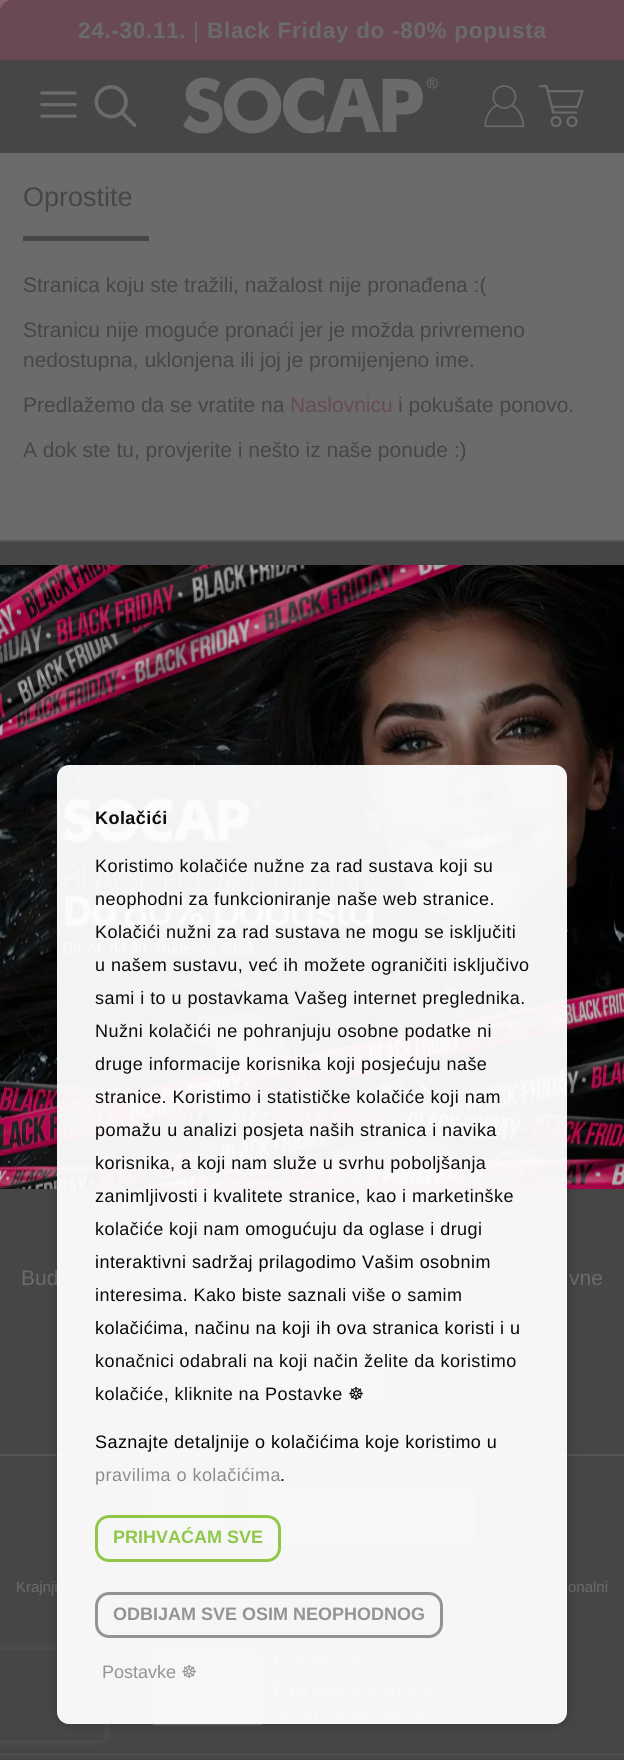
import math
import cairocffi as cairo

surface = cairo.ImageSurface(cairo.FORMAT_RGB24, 624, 1760)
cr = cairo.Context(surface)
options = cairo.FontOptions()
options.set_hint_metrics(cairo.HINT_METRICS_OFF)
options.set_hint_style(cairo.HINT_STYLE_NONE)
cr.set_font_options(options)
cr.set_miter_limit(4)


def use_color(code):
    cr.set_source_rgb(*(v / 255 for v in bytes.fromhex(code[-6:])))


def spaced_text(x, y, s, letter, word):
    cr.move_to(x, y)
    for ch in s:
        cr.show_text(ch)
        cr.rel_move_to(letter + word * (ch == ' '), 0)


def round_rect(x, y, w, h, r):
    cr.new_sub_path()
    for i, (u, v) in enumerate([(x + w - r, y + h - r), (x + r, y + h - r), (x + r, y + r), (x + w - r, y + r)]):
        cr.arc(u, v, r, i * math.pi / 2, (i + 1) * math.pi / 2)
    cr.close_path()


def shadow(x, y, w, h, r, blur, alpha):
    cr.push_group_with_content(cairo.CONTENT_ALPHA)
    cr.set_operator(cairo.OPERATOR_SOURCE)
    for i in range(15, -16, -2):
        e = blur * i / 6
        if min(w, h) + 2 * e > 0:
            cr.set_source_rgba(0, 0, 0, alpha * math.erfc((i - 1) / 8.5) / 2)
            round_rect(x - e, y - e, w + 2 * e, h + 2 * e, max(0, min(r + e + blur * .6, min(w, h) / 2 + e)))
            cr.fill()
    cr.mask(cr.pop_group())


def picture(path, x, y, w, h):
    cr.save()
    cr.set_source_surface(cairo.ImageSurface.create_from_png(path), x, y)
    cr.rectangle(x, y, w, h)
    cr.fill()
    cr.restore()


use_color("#949494")
cr.paint()
use_color("#916673")
cr.rectangle(0, 0, 624, 60)
cr.fill()
cr.select_font_face("Liberation Sans", cairo.FONT_SLANT_NORMAL, cairo.FONT_WEIGHT_BOLD)
cr.set_font_size(22.5)
use_color("#949494")
spaced_text(78, 38, "24.-30.11.", 0.7, 0)
cr.select_font_face("Liberation Sans")
spaced_text(193, 38, "|", 0.7, 0)
cr.select_font_face("Liberation Sans", cairo.FONT_SLANT_NORMAL, cairo.FONT_WEIGHT_BOLD)
spaced_text(207, 38, "Black Friday do -80% popusta", 0.7, 0)
use_color("#616161")
cr.rectangle(0, 60, 624, 93)
cr.fill()
picture("img1.png", 40, 91, 37, 27)
picture("img2.png", 94, 85, 43, 43)
picture("img3.png", 183, 77, 255, 57)
picture("img4.png", 484, 85, 41, 43)
picture("img5.png", 539, 85, 45, 43)
cr.select_font_face("Liberation Sans")
cr.set_font_size(27)
cr.move_to(23, 206)
cr.show_text("Oprostite")
cr.rectangle(23, 236, 126, 5)
cr.fill()
cr.set_font_size(21)
cr.move_to(23, 292)
cr.show_text("Stranica koju ste tražili, nažalost nije pronađena :(")
cr.move_to(23, 337)
cr.show_text("Stranicu nije moguće pronaći jer je možda privremeno")
cr.move_to(23, 367)
cr.show_text("nedostupna, uklonjena ili joj je promijenjeno ime.")
cr.move_to(23, 412)
cr.show_text("Predlažemo da se vratite na")
use_color("#916673")
cr.move_to(290, 412)
cr.show_text("Naslovnicu")
use_color("#616161")
cr.move_to(398, 412)
cr.show_text("i pokušate ponovo.")
cr.move_to(23, 457)
cr.show_text("A dok ste tu, provjerite i nešto iz naše ponude :)")
cr.rectangle(0, 542, 624, 1212)
cr.fill()
picture("img6.png", 0, 565, 624, 624)
use_color("#757575")
cr.rectangle(0, 540, 624, 2)
cr.fill()
cr.rectangle(0, 1454, 624, 2)
cr.fill()
use_color("#949494")
cr.move_to(21, 1285)
cr.show_text("Bud")
cr.move_to(569, 1285)
cr.show_text("vne")
use_color("#916673")
round_rect(237, 1350, 150, 56, 6)
cr.fill()
use_color("#757575")
cr.rectangle(0, 1754, 624, 1)
cr.fill()
picture("img7.png", 147, 1485, 330, 65)
cr.set_font_size(15)
use_color("#949494")
cr.move_to(16, 1592)
cr.show_text("Krajnji")
cr.move_to(568, 1592)
cr.show_text("onalni")
picture("img8.png", 152, 1650, 309, 76)
use_color("#616161")
cr.rectangle(0, 1755, 624, 5)
cr.fill()
cr.save()
cr.set_fill_rule(cairo.FILL_RULE_EVEN_ODD)
cr.new_path()
cr.move_to(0, 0)
cr.line_to(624, 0)
cr.line_to(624, 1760)
cr.line_to(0, 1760)
cr.close_path()
cr.move_to(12, 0)
cr.line_to(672, 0)
cr.curve_to(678.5, 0, 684, 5.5, 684, 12)
cr.line_to(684, 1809)
cr.curve_to(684, 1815.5, 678.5, 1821, 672, 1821)
cr.line_to(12, 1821)
cr.curve_to(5.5, 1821, 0, 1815.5, 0, 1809)
cr.line_to(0, 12)
cr.curve_to(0, 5.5, 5.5, 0, 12, 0)
cr.close_path()
cr.clip()
use_color("#070506")
shadow(-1, -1, 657, 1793, 14, 6, 0.2)
cr.restore()
cr.save()
cr.set_fill_rule(cairo.FILL_RULE_EVEN_ODD)
cr.new_path()
cr.move_to(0, 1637)
cr.line_to(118, 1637)
cr.line_to(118, 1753)
cr.line_to(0, 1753)
cr.close_path()
cr.move_to(-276, 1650)
cr.line_to(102, 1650)
cr.curve_to(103.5, 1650, 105, 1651.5, 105, 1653)
cr.line_to(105, 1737)
cr.curve_to(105, 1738.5, 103.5, 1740, 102, 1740)
cr.line_to(-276, 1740)
cr.curve_to(-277.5, 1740, -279, 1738.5, -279, 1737)
cr.line_to(-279, 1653)
cr.curve_to(-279, 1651.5, -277.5, 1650, -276, 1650)
cr.close_path()
cr.clip()
use_color("#7a7a7a")
shadow(-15, 1650, 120, 90, 3, 4, 1)
cr.restore()
cr.set_source_rgba(0, 0, 0, 0.28)
round_rect(0, 0, 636, 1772, 12)
cr.fill()
cr.save()
cr.rectangle(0, 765, 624, 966)
cr.clip()
cr.set_fill_rule(cairo.FILL_RULE_EVEN_ODD)
cr.new_path()
cr.move_to(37, 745)
cr.line_to(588, 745)
cr.line_to(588, 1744)
cr.line_to(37, 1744)
cr.close_path()
cr.move_to(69, 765)
cr.line_to(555, 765)
cr.curve_to(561.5, 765, 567, 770.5, 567, 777)
cr.line_to(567, 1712)
cr.curve_to(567, 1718.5, 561.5, 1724, 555, 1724)
cr.line_to(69, 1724)
cr.curve_to(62.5, 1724, 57, 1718.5, 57, 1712)
cr.line_to(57, 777)
cr.curve_to(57, 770.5, 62.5, 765, 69, 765)
cr.close_path()
cr.clip()
use_color("#000000")
shadow(56, 764, 513, 961, 14, 6, 0.19)
cr.restore()
cr.set_source_rgba(1, 1, 1, 0.95)
round_rect(57, 765, 510, 959, 12)
cr.fill()
cr.select_font_face("Liberation Sans", cairo.FONT_SLANT_NORMAL, cairo.FONT_WEIGHT_BOLD)
cr.set_font_size(18)
use_color("#0c0c0c")
spaced_text(95, 824, "Kolačići", 0.45, 0)
cr.select_font_face("Liberation Sans")
spaced_text(95, 872, "Koristimo kolačiće nužne za rad sustava koji su", 0.45, 0)
spaced_text(95, 905, "neophodni za funkcioniranje naše web stranice.", 0.45, 0)
spaced_text(95, 938, "Kolačići nužni za rad sustava ne mogu se isključiti", 0.45, 0)
spaced_text(95, 971, "u našem sustavu, već ih možete ograničiti isključivo", 0.45, 0)
spaced_text(95, 1004, "sami i to u postavkama Vašeg internet preglednika.", 0.45, 0)
spaced_text(95, 1037, "Nužni kolačići ne pohranjuju osobne podatke ni", 0.45, 0)
spaced_text(95, 1070, "druge informacije korisnika koji posjećuju naše", 0.45, 0)
spaced_text(95, 1103, "stranice. Koristimo i statističke kolačiće koji nam", 0.45, 0)
spaced_text(95, 1136, "pomažu u analizi posjeta naših stranica i navika", 0.45, 0)
spaced_text(95, 1169, "korisnika, a koji nam služe u svrhu poboljšanja", 0.45, 0)
spaced_text(95, 1202, "zanimljivosti i kvalitete stranice, kao i marketinške", 0.45, 0)
spaced_text(95, 1235, "kolačiće koji nam omogućuju da oglase i drugi", 0.45, 0)
use_color("#050505")
spaced_text(95, 1268, "interaktivni sadržaj prilagodimo Vašim osobnim", 0.45, 0)
use_color("#0c0c0c")
spaced_text(95, 1301, "interesima. Kako biste saznali više o samim", 0.45, 0)
use_color("#050505")
spaced_text(95, 1334, "kolačićima, načinu na koji ih ova stranica koristi i u", 0.45, 0)
use_color("#0c0c0c")
spaced_text(95, 1367, "konačnici odabrali na koji način želite da koristimo", 0.45, 0)
spaced_text(95, 1400, "kolačiće, kliknite na Postavke", 0.45, 0)
cr.select_font_face("DejaVu Sans")
use_color("#050505")
spaced_text(348, 1400, "☸", 0.45, 0)
cr.select_font_face("Liberation Sans")
spaced_text(95, 1448, "Saznajte detaljnije o kolačićima koje koristimo u", 0.45, 0)
use_color("#8c8c8c")
spaced_text(95, 1481, "pravilima o kolačićima", 0.45, 0)
use_color("#050505")
spaced_text(280, 1481, ".", 0.45, 0)
round_rect(96.5, 1516.5, 183, 44, 12.5)
use_color("#90c748")
cr.set_line_width(3)
cr.stroke()
cr.select_font_face("Liberation Sans", cairo.FONT_SLANT_NORMAL, cairo.FONT_WEIGHT_BOLD)
cr.move_to(113, 1543)
cr.show_text("PRIHVAĆAM SVE")
round_rect(96.5, 1593.5, 345, 43, 12.5)
use_color("#939393")
cr.stroke()
use_color("#949494")
cr.move_to(113, 1620)
cr.show_text("ODBIJAM SVE OSIM NEOPHODNOG")
cr.select_font_face("Liberation Sans")
cr.move_to(102, 1678)
cr.show_text("Postavke")
cr.select_font_face("DejaVu Sans")
cr.move_to(181, 1678)
cr.show_text("☸")
surface.write_to_png("result.png")
